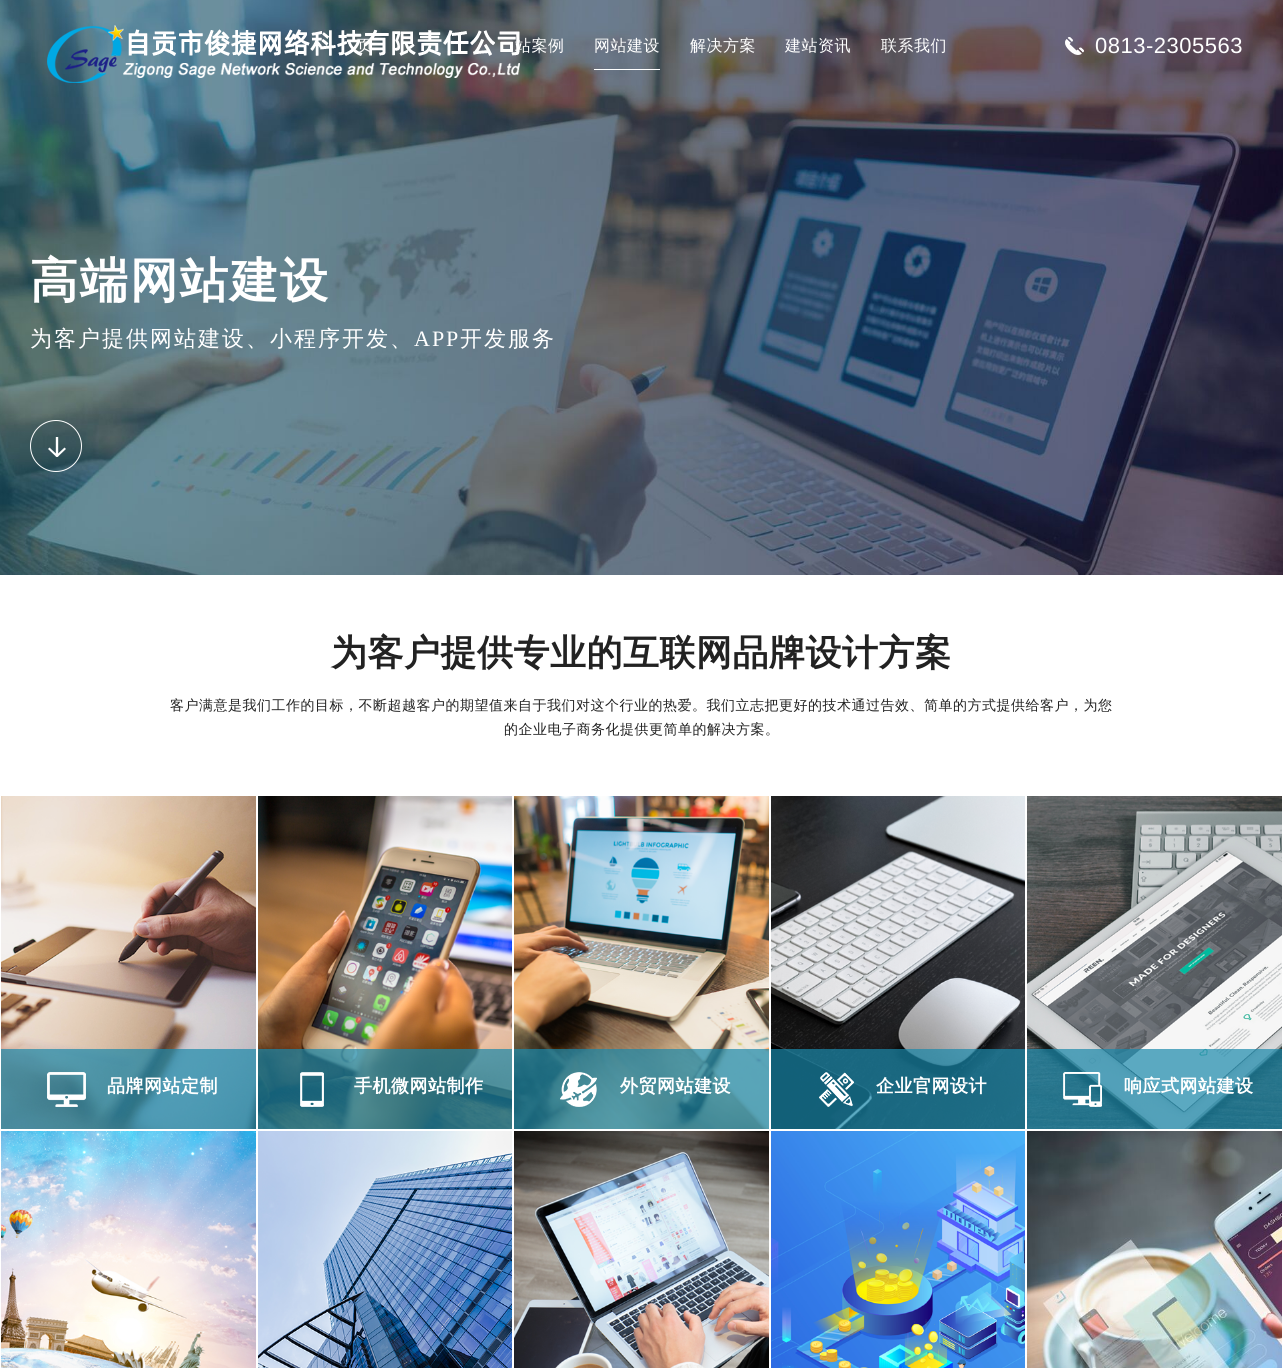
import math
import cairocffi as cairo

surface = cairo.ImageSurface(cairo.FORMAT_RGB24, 1283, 1368)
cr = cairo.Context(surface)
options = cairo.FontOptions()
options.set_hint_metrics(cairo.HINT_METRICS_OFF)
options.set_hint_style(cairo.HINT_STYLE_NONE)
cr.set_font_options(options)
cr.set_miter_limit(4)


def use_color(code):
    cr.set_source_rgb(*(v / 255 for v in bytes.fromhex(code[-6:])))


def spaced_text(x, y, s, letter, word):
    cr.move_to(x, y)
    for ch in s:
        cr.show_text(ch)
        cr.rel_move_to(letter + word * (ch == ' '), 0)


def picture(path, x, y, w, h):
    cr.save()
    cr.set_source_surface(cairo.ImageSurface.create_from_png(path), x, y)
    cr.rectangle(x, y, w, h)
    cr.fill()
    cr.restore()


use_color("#ffffff")
cr.paint()
picture("img3.png", 0, 0, 1283, 575)
cr.select_font_face("WenQuanYi Zen Hei Medium")
cr.set_font_size(16)
use_color("#ffffff")
spaced_text(357, 51, "页", 0.5, 0)
spaced_text(515, 51, "站案例", 0.5, 0)
picture("img1.png", 47, 25, 473, 58)
spaced_text(594, 51, "网站建设", 0.5, 0)
cr.rectangle(594, 69, 66, 1)
cr.fill()
spaced_text(690, 51, "解决方案", 0.5, 0)
spaced_text(785, 51, "建站资讯", 0.5, 0)
spaced_text(881, 51, "联系我们", 0.5, 0)
picture("img2.png", 1065, 37, 19, 18)
cr.select_font_face("Liberation Sans")
cr.set_font_size(22)
spaced_text(1095, 53, "0813-2305563", 0.5, 0)
cr.select_font_face("WenQuanYi Zen Hei", cairo.FONT_SLANT_NORMAL, cairo.FONT_WEIGHT_BOLD)
cr.set_font_size(48)
spaced_text(30, 297, "高端网站建设", 2, 0)
cr.select_font_face("WenQuanYi Zen Hei Medium")
cr.set_font_size(22)
spaced_text(30, 346, "为客户提供网站建设、小程序开发、", 2, 0)
cr.select_font_face("Liberation Serif")
spaced_text(414, 346, "APP", 2, 0)
cr.select_font_face("WenQuanYi Zen Hei Medium")
spaced_text(460, 346, "开发服务", 2, 0)
cr.new_path()
cr.arc(56, 446, 25.5, 0, 2 * math.pi)
cr.set_line_width(1)
cr.stroke()
picture("img4.png", 48, 437, 18, 20)
cr.select_font_face("WenQuanYi Zen Hei", cairo.FONT_SLANT_NORMAL, cairo.FONT_WEIGHT_BOLD)
cr.set_font_size(36)
use_color("#222222")
spaced_text(331, 665, "为客户提供专业的互联网品牌设计方案", 0.5, 0)
cr.select_font_face("WenQuanYi Zen Hei Medium")
cr.set_font_size(14)
spaced_text(170, 710, "客户满意是我们工作的目标，不断超越客户的期望值来自于我们对这个行业的热爱。我们立志把更好的技术通过告效、简单的方式提供给客户，为您", 0.5, 0)
spaced_text(504, 734, "的企业电子商务化提供更简单的解决方案。", 0.5, 0)
picture("img5.png", 1, 796, 255, 333)
cr.set_source_rgba(0.102, 0.537, 0.675, 0.7)
cr.rectangle(1, 1049, 255, 80)
cr.fill()
picture("img6.png", 47, 1072, 39, 35)
cr.select_font_face("WenQuanYi Zen Hei", cairo.FONT_SLANT_NORMAL, cairo.FONT_WEIGHT_BOLD)
cr.set_font_size(18)
use_color("#ffffff")
spaced_text(107, 1092, "品牌网站定制", 0.5, 0)
picture("img7.png", 258, 796, 254, 333)
cr.set_source_rgba(0.102, 0.537, 0.675, 0.7)
cr.rectangle(258, 1049, 254, 80)
cr.fill()
picture("img8.png", 300, 1072, 24, 35)
use_color("#ffffff")
spaced_text(354, 1092, "手机微网站制作", 0.5, 0)
picture("img9.png", 514, 796, 255, 333)
cr.set_source_rgba(0.102, 0.537, 0.675, 0.7)
cr.rectangle(514, 1049, 255, 80)
cr.fill()
picture("img10.png", 560, 1072, 37, 35)
use_color("#ffffff")
spaced_text(620, 1092, "外贸网站建设", 0.5, 0)
picture("img11.png", 771, 796, 254, 333)
cr.set_source_rgba(0.102, 0.537, 0.675, 0.7)
cr.rectangle(771, 1049, 254, 80)
cr.fill()
picture("img12.png", 819, 1072, 35, 35)
use_color("#ffffff")
spaced_text(876, 1092, "企业官网设计", 0.5, 0)
picture("img13.png", 1027, 796, 255, 333)
cr.set_source_rgba(0.102, 0.537, 0.675, 0.7)
cr.rectangle(1027, 1049, 255, 80)
cr.fill()
picture("img14.png", 1063, 1072, 39, 35)
use_color("#ffffff")
spaced_text(1124, 1092, "响应式网站建设", 0.5, 0)
picture("img15.png", 1, 1131, 255, 237)
picture("img16.png", 258, 1131, 254, 237)
picture("img17.png", 514, 1131, 255, 237)
picture("img18.png", 771, 1131, 254, 237)
picture("img19.png", 1027, 1131, 255, 237)
surface.write_to_png("result.png")
